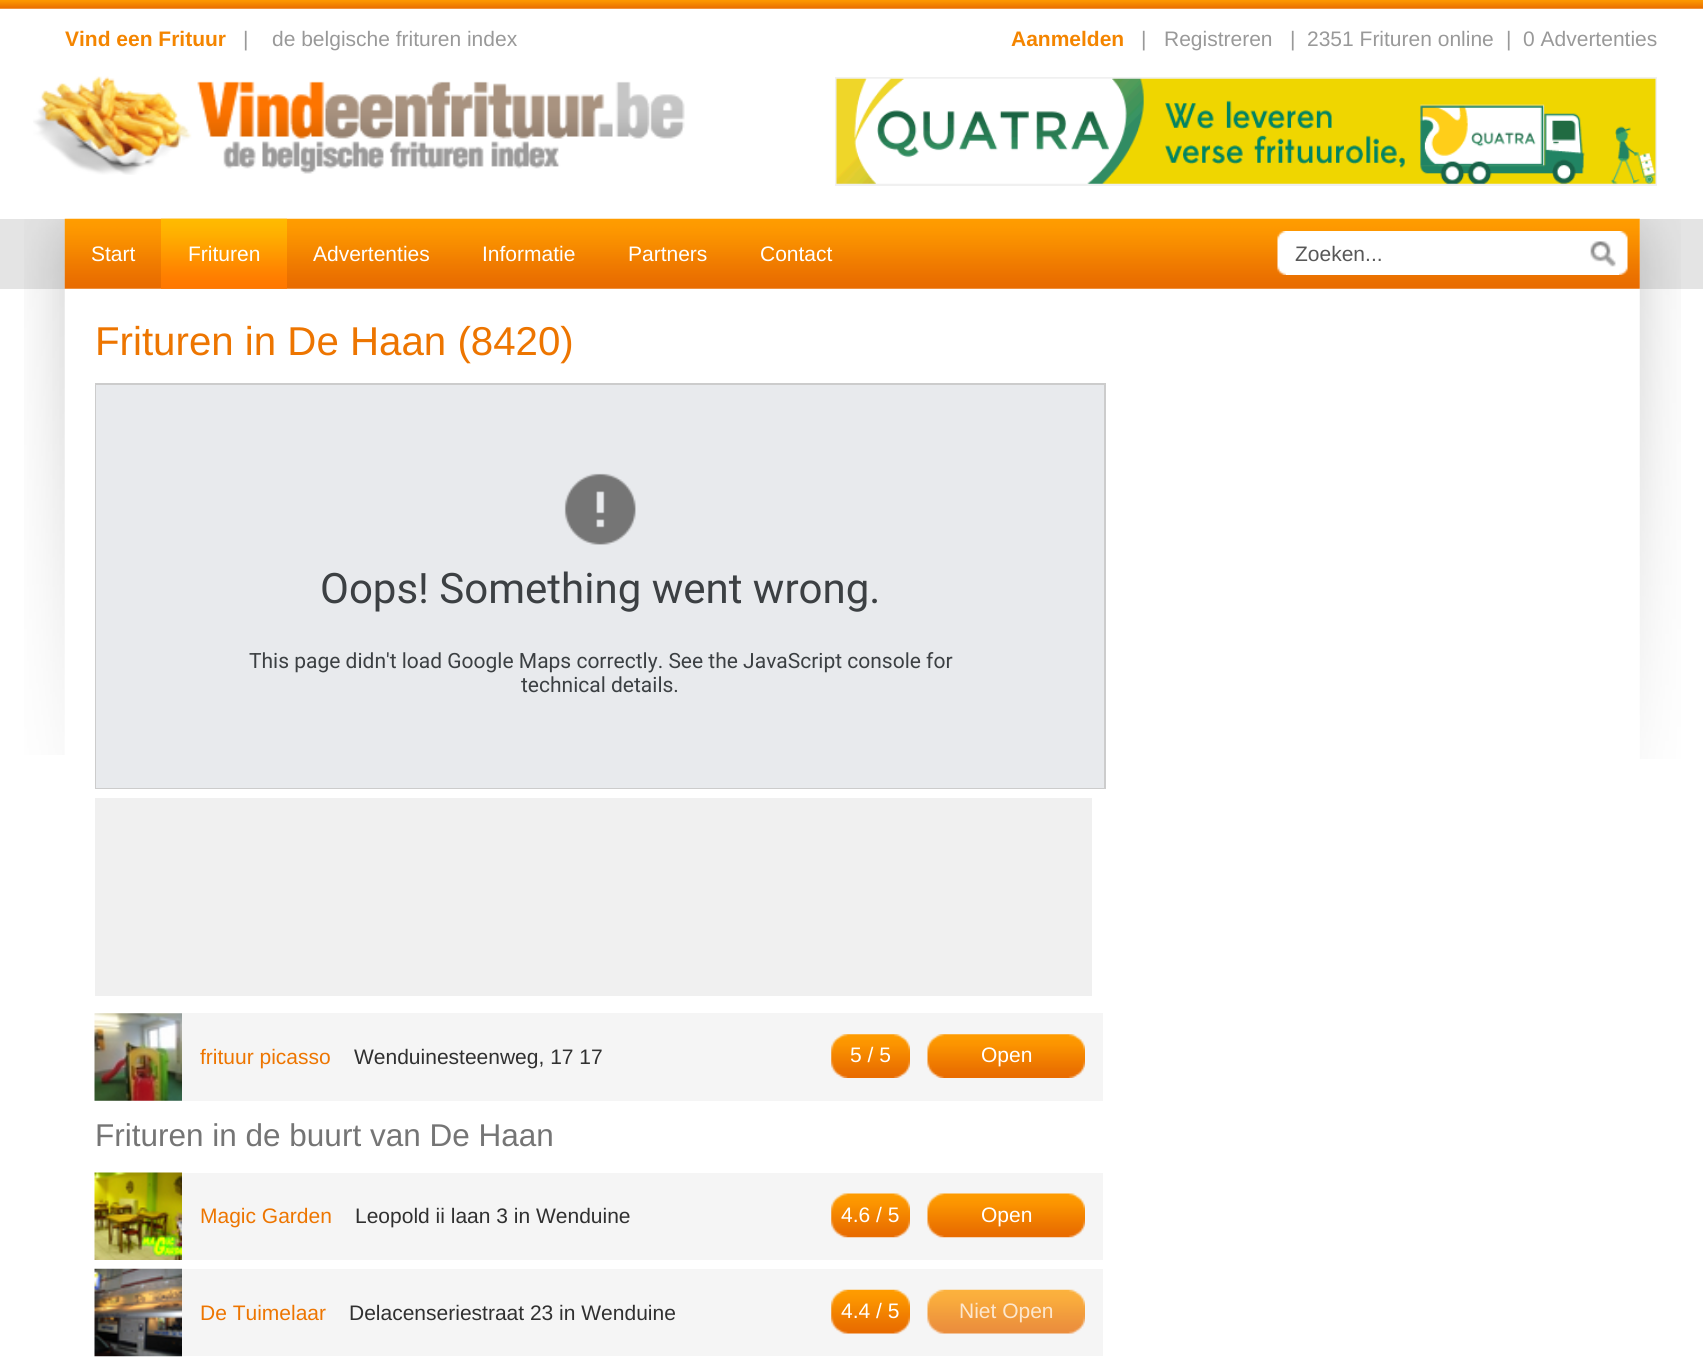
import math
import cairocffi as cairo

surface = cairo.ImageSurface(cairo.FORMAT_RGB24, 1703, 1362)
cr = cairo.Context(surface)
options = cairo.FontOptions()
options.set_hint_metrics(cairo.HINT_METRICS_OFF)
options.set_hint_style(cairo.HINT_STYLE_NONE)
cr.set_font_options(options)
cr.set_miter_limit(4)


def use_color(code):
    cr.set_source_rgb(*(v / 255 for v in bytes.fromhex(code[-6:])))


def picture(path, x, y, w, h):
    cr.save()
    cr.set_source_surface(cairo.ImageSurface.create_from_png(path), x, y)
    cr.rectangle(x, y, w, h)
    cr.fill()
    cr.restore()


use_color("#ffffff")
cr.paint()
picture("img1.png", 0, 0, 1703, 9)
cr.select_font_face("Liberation Sans", cairo.FONT_SLANT_NORMAL, cairo.FONT_WEIGHT_BOLD)
cr.set_font_size(21)
use_color("#f48500")
cr.move_to(65, 46)
cr.show_text("Vind een Frituur")
cr.select_font_face("Liberation Sans")
use_color("#999999")
cr.move_to(243, 46)
cr.show_text("|")
cr.move_to(272, 46)
cr.show_text("de belgische frituren index")
cr.select_font_face("Liberation Sans", cairo.FONT_SLANT_NORMAL, cairo.FONT_WEIGHT_BOLD)
use_color("#f48500")
cr.move_to(1011, 46)
cr.show_text("Aanmelden")
cr.select_font_face("Liberation Sans")
use_color("#999999")
cr.move_to(1141, 46)
cr.show_text("|")
cr.move_to(1164, 46)
cr.show_text("Registreren")
cr.move_to(1290, 46)
cr.show_text("|")
cr.move_to(1307, 46)
cr.show_text("2351 Frituren online")
cr.move_to(1506, 46)
cr.show_text("|")
cr.move_to(1523, 46)
cr.show_text("0 Advertenties")
picture("img2.png", 33, 76, 652, 99)
use_color("#f0f0f0")
cr.rectangle(835, 77, 822, 109)
cr.fill()
picture("img3.png", 836, 78, 820, 106)
use_color("#e4e4e4")
cr.rectangle(0, 219, 1703, 70)
cr.fill()
picture("img4.png", 24, 219, 41, 536)
use_color("#ffffff")
cr.rectangle(65, 219, 1575, 70)
cr.fill()
picture("img5.png", 64, 218, 1576, 71)
cr.move_to(91, 261)
cr.show_text("Start")
picture("img6.png", 161, 218, 126, 71)
cr.move_to(188, 261)
cr.show_text("Frituren")
cr.move_to(313, 261)
cr.show_text("Advertenties")
cr.move_to(482, 261)
cr.show_text("Informatie")
cr.move_to(628, 261)
cr.show_text("Partners")
cr.move_to(760, 261)
cr.show_text("Contact")
picture("img7.png", 1277, 231, 9, 44)
cr.rectangle(1286, 231, 333, 44)
cr.fill()
use_color("#585858")
cr.move_to(1295, 261)
cr.show_text("Zoeken...")
picture("img8.png", 1590, 241, 26, 26)
picture("img9.png", 1619, 231, 9, 44)
cr.set_font_size(40.25)
use_color("#ed7500")
cr.move_to(95, 355)
cr.show_text("Frituren in De Haan (8420)")
cr.rectangle(96, 384, 1009, 404)
use_color("#cccccc")
cr.stroke()
use_color("#e8eaed")
cr.rectangle(96, 385, 1008, 403)
cr.fill()
picture("img10.png", 564, 473, 72, 72)
cr.select_font_face("Roboto")
cr.set_font_size(42)
use_color("#3c4043")
cr.move_to(320, 603)
cr.show_text("Oops! Something went wrong.")
cr.set_font_size(21)
cr.move_to(249, 668)
cr.show_text("This page didn't load Google Maps correctly. See the JavaScript console for")
cr.move_to(521, 692)
cr.show_text("technical details.")
use_color("#f0f0f0")
cr.rectangle(95, 798, 997, 198)
cr.fill()
use_color("#f5f5f5")
cr.rectangle(95, 1013, 1008, 88)
cr.fill()
picture("img11.png", 94, 1013, 88, 88)
cr.select_font_face("Liberation Sans")
use_color("#ed7500")
cr.move_to(200, 1064)
cr.show_text("frituur picasso")
use_color("#303030")
cr.move_to(354, 1064)
cr.show_text("Wenduinesteenweg, 17 17")
picture("img12.png", 831, 1034, 79, 44)
use_color("#ffffff")
cr.move_to(850, 1062)
cr.show_text("5 / 5")
picture("img13.png", 927, 1034, 158, 44)
cr.move_to(981, 1062)
cr.show_text("Open")
cr.set_font_size(31.5)
use_color("#757575")
cr.move_to(95, 1146)
cr.show_text("Frituren in de buurt van De Haan")
use_color("#f5f5f5")
cr.rectangle(182, 1173, 921, 87)
cr.fill()
picture("img14.png", 94, 1172, 88, 88)
cr.set_font_size(21)
use_color("#ed7500")
cr.move_to(200, 1223)
cr.show_text("Magic Garden")
use_color("#303030")
cr.move_to(355, 1223)
cr.show_text("Leopold ii laan 3 in Wenduine")
picture("img15.png", 831, 1193, 79, 45)
use_color("#ffffff")
cr.move_to(841, 1222)
cr.show_text("4.6 / 5")
picture("img16.png", 927, 1193, 158, 45)
cr.move_to(981, 1222)
cr.show_text("Open")
use_color("#f5f5f5")
cr.rectangle(182, 1269, 921, 87)
cr.fill()
picture("img17.png", 94, 1268, 88, 89)
use_color("#ed7500")
cr.move_to(200, 1320)
cr.show_text("De Tuimelaar")
use_color("#303030")
cr.move_to(349, 1320)
cr.show_text("Delacenseriestraat 23 in Wenduine")
picture("img18.png", 831, 1289, 79, 45)
use_color("#ffffff")
cr.move_to(841, 1318)
cr.show_text("4.4 / 5")
picture("img19.png", 927, 1289, 158, 45)
use_color("#fce7cf")
cr.move_to(959, 1318)
cr.show_text("Niet Open")
picture("img20.png", 1639, 219, 42, 540)
surface.write_to_png("result.png")
